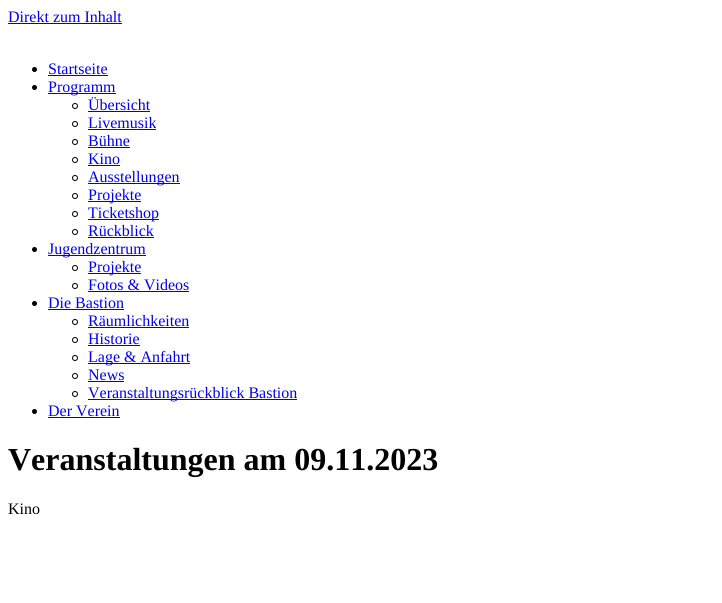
import math
import cairocffi as cairo

surface = cairo.ImageSurface(cairo.FORMAT_RGB24, 722, 603)
cr = cairo.Context(surface)
options = cairo.FontOptions()
options.set_hint_metrics(cairo.HINT_METRICS_OFF)
options.set_hint_style(cairo.HINT_STYLE_NONE)
cr.set_font_options(options)
cr.set_miter_limit(4)


def use_color(code):
    cr.set_source_rgb(*(v / 255 for v in bytes.fromhex(code[-6:])))


use_color("#ffffff")
cr.paint()
cr.select_font_face("Liberation Serif")
cr.set_font_size(16)
use_color("#0000ee")
cr.move_to(8, 22)
cr.show_text("Direkt zum Inhalt")
cr.rectangle(8, 23, 114, 1)
cr.fill()
use_color("#000000")
cr.arc(34.5, 69.5, 2.5, 0, 2 * math.pi)
cr.fill()
use_color("#0000ee")
cr.move_to(48, 74)
cr.show_text("Startseite")
cr.rectangle(48, 75, 60, 1)
cr.fill()
use_color("#000000")
cr.arc(34.5, 87.5, 2.5, 0, 2 * math.pi)
cr.fill()
use_color("#0000ee")
cr.rectangle(48, 93, 68, 1)
cr.fill()
cr.move_to(48, 92)
cr.show_text("Programm")
cr.new_path()
cr.arc(75, 106, 2.5, 0, 2 * math.pi)
use_color("#000000")
cr.set_line_width(1)
cr.stroke()
use_color("#0000ee")
cr.move_to(88, 110)
cr.show_text("Übersicht")
cr.rectangle(88, 111, 62, 1)
cr.fill()
cr.arc(75, 124, 2.5, 0, 2 * math.pi)
use_color("#000000")
cr.stroke()
use_color("#0000ee")
cr.move_to(88, 128)
cr.show_text("Livemusik")
cr.rectangle(88, 129, 68, 1)
cr.fill()
cr.arc(75, 142, 2.5, 0, 2 * math.pi)
use_color("#000000")
cr.stroke()
use_color("#0000ee")
cr.move_to(88, 146)
cr.show_text("Bühne")
cr.rectangle(88, 147, 42, 1)
cr.fill()
cr.arc(75, 160, 2.5, 0, 2 * math.pi)
use_color("#000000")
cr.stroke()
use_color("#0000ee")
cr.move_to(88, 164)
cr.show_text("Kino")
cr.rectangle(88, 165, 32, 1)
cr.fill()
cr.arc(75, 178, 2.5, 0, 2 * math.pi)
use_color("#000000")
cr.stroke()
use_color("#0000ee")
cr.rectangle(88, 183, 92, 1)
cr.fill()
cr.move_to(88, 182)
cr.show_text("Ausstellungen")
cr.new_path()
cr.arc(75, 196, 2.5, 0, 2 * math.pi)
use_color("#000000")
cr.stroke()
use_color("#0000ee")
cr.rectangle(88, 201, 53, 1)
cr.fill()
cr.move_to(88, 200)
cr.show_text("Projekte")
cr.new_path()
cr.arc(75, 214, 2.5, 0, 2 * math.pi)
use_color("#000000")
cr.stroke()
use_color("#0000ee")
cr.rectangle(88, 219, 71, 1)
cr.fill()
cr.move_to(88, 218)
cr.show_text("Ticketshop")
cr.new_path()
cr.arc(75, 232, 2.5, 0, 2 * math.pi)
use_color("#000000")
cr.stroke()
use_color("#0000ee")
cr.move_to(88, 236)
cr.show_text("Rückblick")
cr.rectangle(88, 237, 66, 1)
cr.fill()
use_color("#000000")
cr.arc(34.5, 249.5, 2.5, 0, 2 * math.pi)
cr.fill()
use_color("#0000ee")
cr.rectangle(48, 255, 98, 1)
cr.fill()
cr.move_to(48, 254)
cr.show_text("Jugendzentrum")
cr.new_path()
cr.arc(75, 268, 2.5, 0, 2 * math.pi)
use_color("#000000")
cr.stroke()
use_color("#0000ee")
cr.rectangle(88, 273, 53, 1)
cr.fill()
cr.move_to(88, 272)
cr.show_text("Projekte")
cr.new_path()
cr.arc(75, 286, 2.5, 0, 2 * math.pi)
use_color("#000000")
cr.stroke()
use_color("#0000ee")
cr.move_to(88, 290)
cr.show_text("Fotos & Videos")
cr.rectangle(88, 291, 101, 1)
cr.fill()
use_color("#000000")
cr.arc(34.5, 303.5, 2.5, 0, 2 * math.pi)
cr.fill()
use_color("#0000ee")
cr.move_to(48, 308)
cr.show_text("Die Bastion")
cr.rectangle(48, 309, 76, 1)
cr.fill()
cr.arc(75, 322, 2.5, 0, 2 * math.pi)
use_color("#000000")
cr.stroke()
use_color("#0000ee")
cr.move_to(88, 326)
cr.show_text("Räumlichkeiten")
cr.rectangle(88, 327, 101, 1)
cr.fill()
cr.arc(75, 340, 2.5, 0, 2 * math.pi)
use_color("#000000")
cr.stroke()
use_color("#0000ee")
cr.move_to(88, 344)
cr.show_text("Historie")
cr.rectangle(88, 345, 52, 1)
cr.fill()
cr.arc(75, 358, 2.5, 0, 2 * math.pi)
use_color("#000000")
cr.stroke()
use_color("#0000ee")
cr.rectangle(88, 363, 102, 1)
cr.fill()
cr.move_to(88, 362)
cr.show_text("Lage & Anfahrt")
cr.new_path()
cr.arc(75, 376, 2.5, 0, 2 * math.pi)
use_color("#000000")
cr.stroke()
use_color("#0000ee")
cr.move_to(88, 380)
cr.show_text("News")
cr.rectangle(88, 381, 36, 1)
cr.fill()
cr.arc(75, 394, 2.5, 0, 2 * math.pi)
use_color("#000000")
cr.stroke()
use_color("#0000ee")
cr.rectangle(88, 399, 209, 1)
cr.fill()
cr.move_to(88, 398)
cr.show_text("Veranstaltungsrückblick Bastion")
use_color("#000000")
cr.new_path()
cr.arc(34.5, 411.5, 2.5, 0, 2 * math.pi)
cr.fill()
use_color("#0000ee")
cr.move_to(48, 416)
cr.show_text("Der Verein")
cr.rectangle(48, 417, 72, 1)
cr.fill()
cr.select_font_face("Liberation Serif", cairo.FONT_SLANT_NORMAL, cairo.FONT_WEIGHT_BOLD)
cr.set_font_size(32)
use_color("#000000")
cr.move_to(8, 470)
cr.show_text("Veranstaltungen am 09.11.2023")
cr.select_font_face("Liberation Serif")
cr.set_font_size(16)
cr.move_to(8, 514)
cr.show_text("Kino")
surface.write_to_png("result.png")
